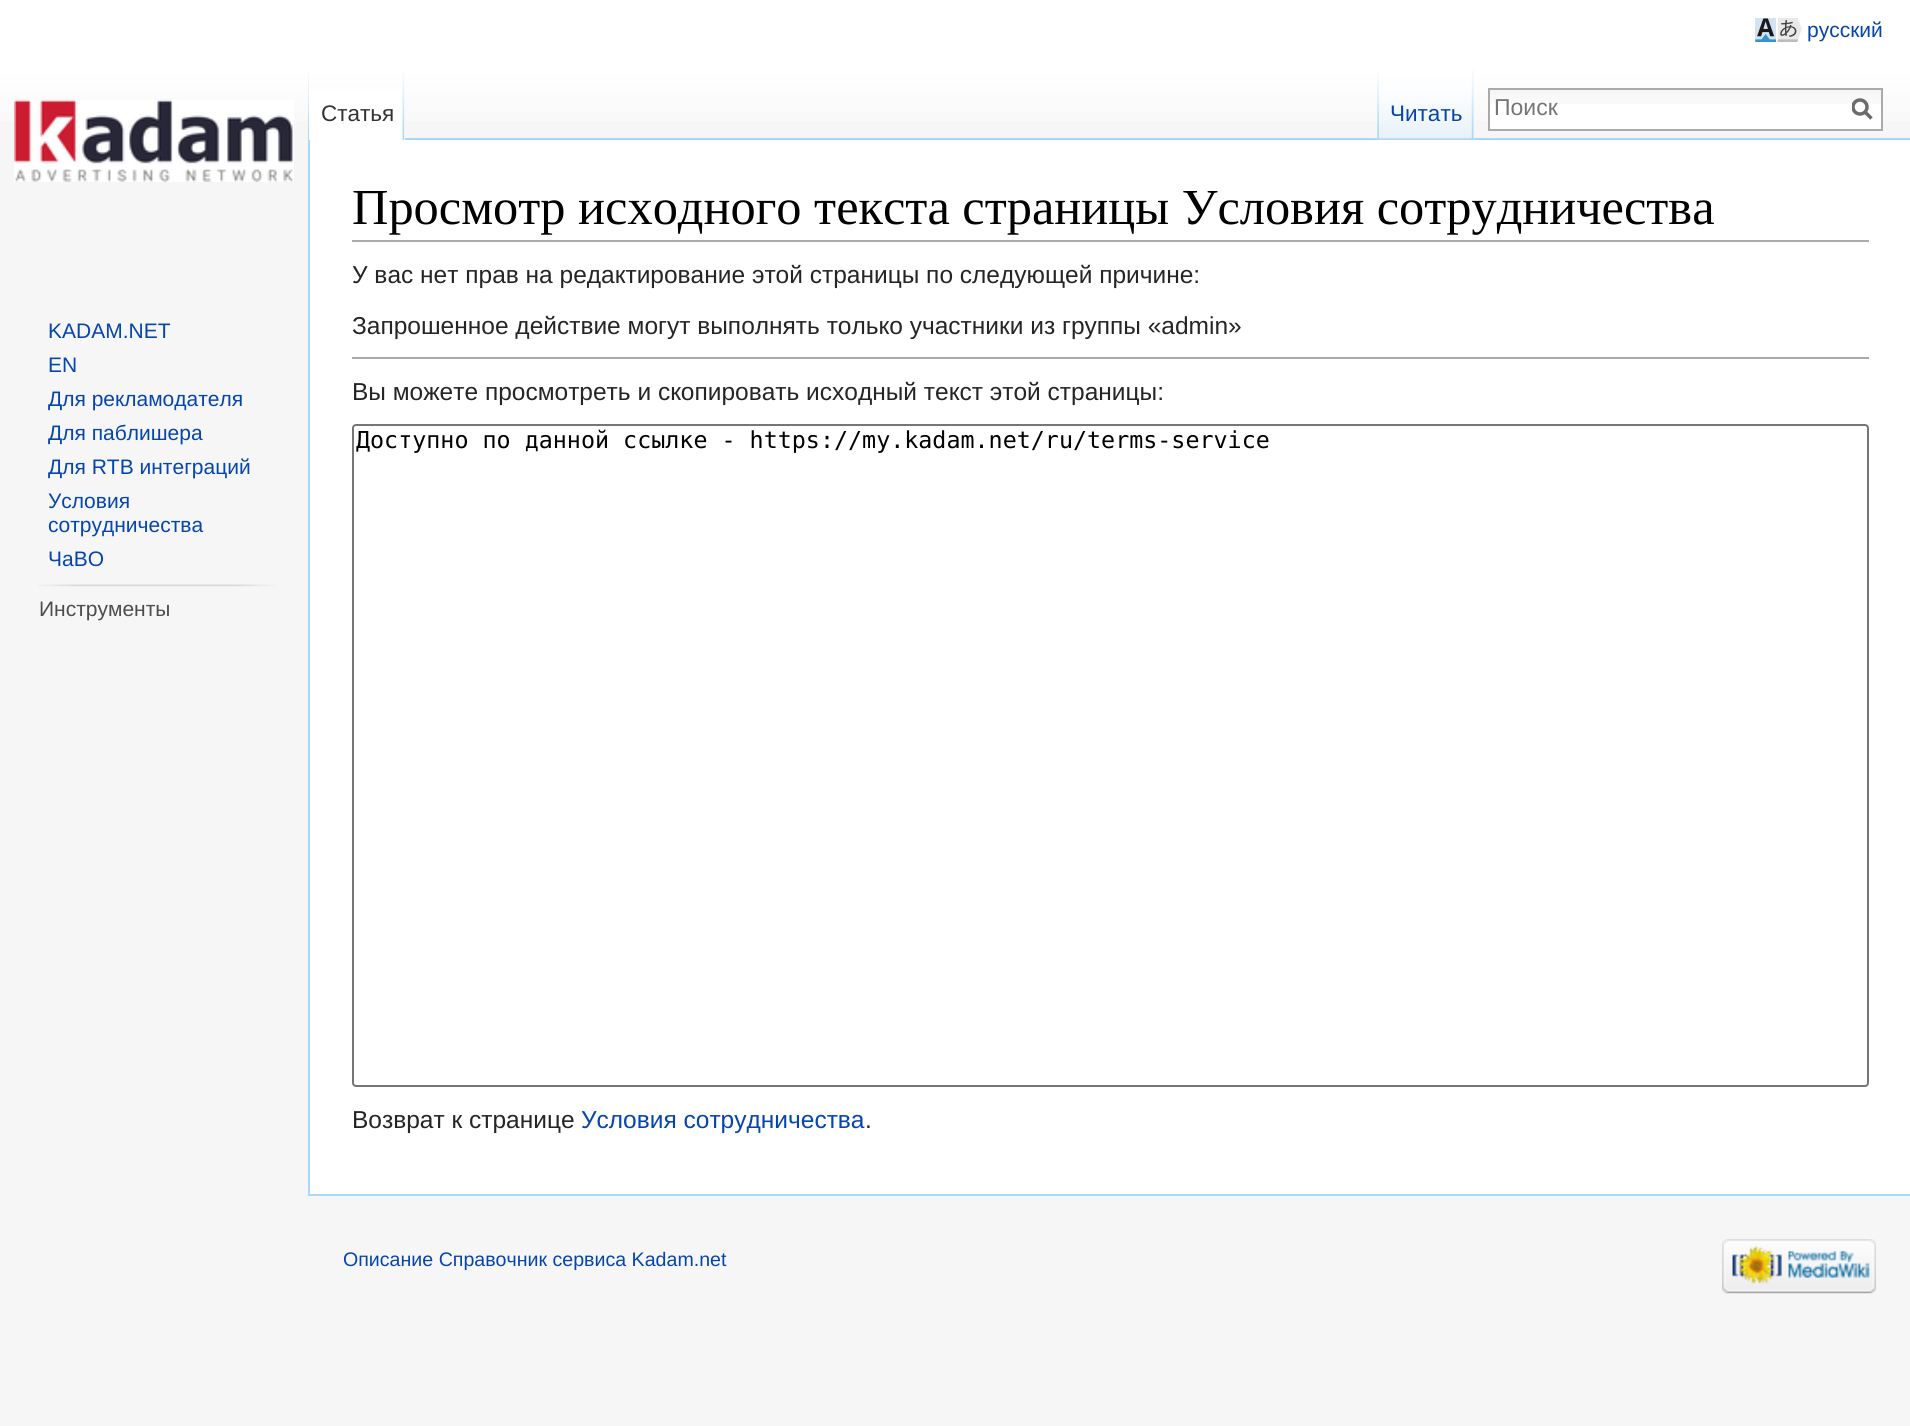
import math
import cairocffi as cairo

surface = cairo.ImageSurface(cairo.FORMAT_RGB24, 1910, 1426)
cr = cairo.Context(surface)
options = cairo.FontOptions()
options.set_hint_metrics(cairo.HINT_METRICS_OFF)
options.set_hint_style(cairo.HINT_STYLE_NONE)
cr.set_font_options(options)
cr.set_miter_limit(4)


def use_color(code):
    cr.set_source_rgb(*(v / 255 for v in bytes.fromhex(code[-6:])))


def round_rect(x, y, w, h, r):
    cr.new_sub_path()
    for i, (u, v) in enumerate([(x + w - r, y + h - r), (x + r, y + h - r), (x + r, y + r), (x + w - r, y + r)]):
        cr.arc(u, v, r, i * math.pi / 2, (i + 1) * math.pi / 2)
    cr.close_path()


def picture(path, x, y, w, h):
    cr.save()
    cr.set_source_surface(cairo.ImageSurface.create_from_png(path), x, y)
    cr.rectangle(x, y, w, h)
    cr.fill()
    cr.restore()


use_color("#f6f6f6")
cr.paint()
gradient = cairo.LinearGradient(956, 0, 956, 140)
gradient.add_color_stop_rgba(0.5, 1, 1, 1, 1)
gradient.add_color_stop_rgba(1, 0.965, 0.965, 0.965, 1)
cr.set_source(gradient)
cr.rectangle(0, 0, 1910, 121)
cr.fill()
picture("img1.png", 1755, 18, 47, 24)
cr.select_font_face("Liberation Sans")
cr.set_font_size(21)
use_color("#0645ad")
cr.move_to(1807, 37)
cr.show_text("русский")
picture("img2.png", 308, 70, 1, 68)
use_color("#a7d7f9")
cr.rectangle(308, 1194, 1602, 2)
cr.fill()
cr.rectangle(308, 138, 2, 1057)
cr.fill()
use_color("#ffffff")
cr.rectangle(309, 89, 96, 51)
cr.fill()
picture("img3.png", 402, 71, 3, 69)
cr.set_font_size(22.5)
use_color("#333333")
cr.move_to(321, 121)
cr.show_text("Статья")
picture("img4.png", 1377, 70, 2, 68)
use_color("#a7d7f9")
cr.rectangle(405, 138, 1505, 2)
cr.fill()
use_color("#f3f3f3")
cr.rectangle(1473, 70, 1, 70)
cr.fill()
picture("img5.png", 1379, 70, 95, 70)
picture("img6.png", 1471, 71, 3, 69)
use_color("#0645ad")
cr.move_to(1390, 121)
cr.show_text("Читать")
use_color("#ffffff")
cr.rectangle(1490, 104, 391, 25)
cr.fill()
picture("img7.png", 1490, 90, 391, 14)
cr.rectangle(1489, 89, 393, 41)
use_color("#aaaaaa")
cr.stroke()
cr.set_font_size(23)
use_color("#757575")
cr.move_to(1494, 115)
cr.show_text("Поиск")
cr.new_path()
cr.move_to(1871.5, 118.5)
cr.line_to(1864.5, 111.5)
use_color("#6c6c6c")
cr.set_line_width(3.5)
cr.stroke()
cr.save()
cr.rectangle(1852, 98, 21, 23)
cr.clip()
cr.arc(1860, 107, 7, 0, 2 * math.pi)
cr.stroke()
cr.restore()
picture("img8.png", 14, 99, 280, 83)
cr.set_font_size(21)
use_color("#0645ad")
cr.move_to(48, 338)
cr.show_text("KADAM.NET")
cr.move_to(48, 372)
cr.show_text("EN")
cr.move_to(48, 406)
cr.show_text("Для рекламодателя")
cr.move_to(48, 440)
cr.show_text("Для паблишера")
cr.move_to(48, 474)
cr.show_text("Для RTB интеграций")
cr.move_to(48, 508)
cr.show_text("Условия")
cr.move_to(48, 532)
cr.show_text("сотрудничества")
cr.move_to(48, 566)
cr.show_text("ЧаВО")
picture("img9.png", 38, 584, 237, 3)
use_color("#4d4d4d")
cr.move_to(39, 616)
cr.show_text("Инструменты")
use_color("#ffffff")
cr.rectangle(310, 140, 1600, 1054)
cr.fill()
use_color("#aaaaaa")
cr.rectangle(352, 240, 1517, 2)
cr.fill()
cr.select_font_face("Liberation Serif")
cr.set_font_size(50.4)
use_color("#000000")
cr.move_to(352, 224)
cr.show_text("Просмотр исходного текста страницы Условия сотрудничества")
cr.select_font_face("Liberation Sans")
cr.set_font_size(24.5)
use_color("#252525")
cr.move_to(352, 283)
cr.show_text("У вас нет прав на редактирование этой страницы по следующей причине:")
cr.move_to(352, 334)
cr.show_text("Запрошенное действие могут выполнять только участники из группы «admin»")
use_color("#aaaaaa")
cr.rectangle(352, 357, 1517, 2)
cr.fill()
use_color("#252525")
cr.move_to(352, 400)
cr.show_text("Вы можете просмотреть и скопировать исходный текст этой страницы:")
round_rect(353, 425, 1515, 661, 3)
use_color("#767676")
cr.set_line_width(2)
cr.stroke()
cr.select_font_face("DejaVu Sans Mono")
cr.set_font_size(23.35)
use_color("#000000")
cr.move_to(356, 448)
cr.show_text("Доступно по данной ссылке - https://my.kadam.net/ru/terms-service")
cr.select_font_face("Liberation Sans")
cr.set_font_size(24.5)
use_color("#252525")
cr.move_to(352, 1128)
cr.show_text("Возврат к странице")
use_color("#0645ad")
cr.move_to(581, 1128)
cr.show_text("Условия сотрудничества")
use_color("#252525")
cr.move_to(865, 1128)
cr.show_text(".")
cr.set_font_size(19.6)
use_color("#0645ad")
cr.move_to(343, 1266)
cr.show_text("Описание Справочник сервиса Kadam.net")
picture("img10.png", 1722, 1239, 154, 55)
surface.write_to_png("result.png")
